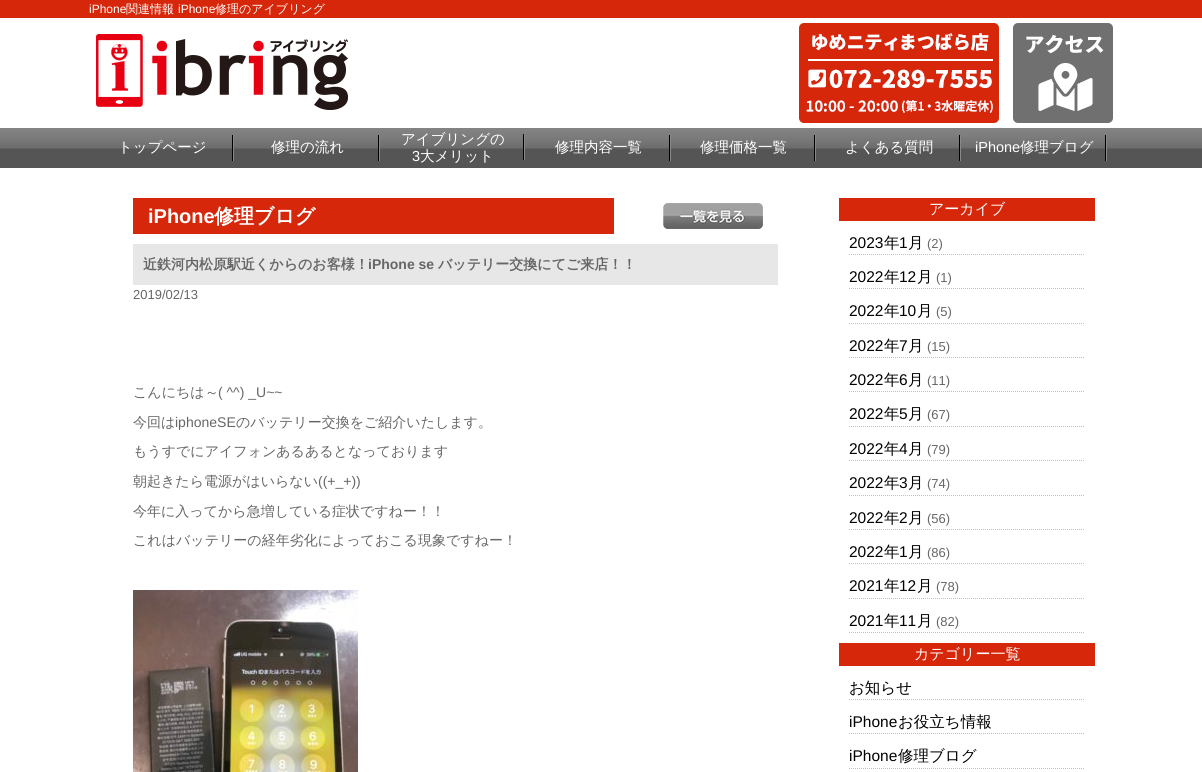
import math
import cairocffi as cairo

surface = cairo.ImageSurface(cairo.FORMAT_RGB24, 1202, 772)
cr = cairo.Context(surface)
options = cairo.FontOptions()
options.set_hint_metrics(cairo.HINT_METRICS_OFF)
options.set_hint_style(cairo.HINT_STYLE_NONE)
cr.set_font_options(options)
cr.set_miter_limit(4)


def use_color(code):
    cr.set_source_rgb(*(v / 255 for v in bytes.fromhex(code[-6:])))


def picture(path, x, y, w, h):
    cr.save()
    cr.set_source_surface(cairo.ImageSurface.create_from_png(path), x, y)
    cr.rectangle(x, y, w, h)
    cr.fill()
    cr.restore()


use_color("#ffffff")
cr.paint()
use_color("#d7270a")
cr.rectangle(0, 0, 1202, 18)
cr.fill()
cr.select_font_face("Liberation Sans")
cr.set_font_size(12)
use_color("#ffffff")
cr.move_to(89, 13)
cr.show_text("iPhone")
cr.select_font_face("WenQuanYi Zen Hei Medium")
cr.move_to(126, 13)
cr.show_text("関連情報")
cr.select_font_face("Liberation Sans")
cr.move_to(178, 13)
cr.show_text("iPhone")
cr.select_font_face("WenQuanYi Zen Hei Medium")
cr.move_to(215, 13)
cr.show_text("修理のアイブリング")
picture("img1.png", 96, 34, 252, 76)
picture("img2.png", 799, 23, 200, 100)
picture("img3.png", 1013, 23, 100, 100)
picture("img4.png", 0, 128, 1202, 40)
picture("img5.png", 232, 135, 2, 26)
cr.set_font_size(14.5)
cr.move_to(118, 152)
cr.show_text("トップページ")
picture("img5.png", 378, 135, 2, 26)
cr.move_to(271, 152)
cr.show_text("修理の流れ")
picture("img5.png", 523, 134, 2, 26)
cr.move_to(401, 144)
cr.show_text("アイブリングの")
cr.select_font_face("Liberation Sans")
cr.move_to(412, 161)
cr.show_text("3")
cr.select_font_face("WenQuanYi Zen Hei Medium")
cr.move_to(420, 161)
cr.show_text("大メリット")
picture("img5.png", 669, 135, 2, 26)
cr.move_to(555, 152)
cr.show_text("修理内容一覧")
picture("img5.png", 814, 135, 2, 26)
cr.move_to(700, 152)
cr.show_text("修理価格一覧")
picture("img5.png", 959, 135, 2, 26)
cr.move_to(845, 152)
cr.show_text("よくある質問")
picture("img5.png", 1105, 135, 2, 26)
cr.select_font_face("Liberation Sans")
cr.move_to(975, 152)
cr.show_text("iPhone")
cr.select_font_face("WenQuanYi Zen Hei Medium")
cr.move_to(1020, 152)
cr.show_text("修理ブログ")
use_color("#d7270a")
cr.rectangle(133, 198, 481, 36)
cr.fill()
cr.select_font_face("Liberation Sans", cairo.FONT_SLANT_NORMAL, cairo.FONT_WEIGHT_BOLD)
cr.set_font_size(20)
use_color("#ffffff")
cr.move_to(148, 223)
cr.show_text("iPhone")
cr.select_font_face("WenQuanYi Zen Hei", cairo.FONT_SLANT_NORMAL, cairo.FONT_WEIGHT_BOLD)
cr.move_to(214, 223)
cr.show_text("修理ブログ")
picture("img6.png", 663, 203, 100, 26)
use_color("#e7e7e7")
cr.rectangle(133, 244, 645, 41)
cr.fill()
cr.set_font_size(14)
use_color("#666666")
cr.move_to(143, 269)
cr.show_text("近鉄河内松原駅近くからのお客様！")
cr.select_font_face("Liberation Sans", cairo.FONT_SLANT_NORMAL, cairo.FONT_WEIGHT_BOLD)
cr.move_to(368, 269)
cr.show_text("iPhone se")
cr.select_font_face("WenQuanYi Zen Hei", cairo.FONT_SLANT_NORMAL, cairo.FONT_WEIGHT_BOLD)
cr.move_to(438, 269)
cr.show_text("バッテリー交換にてご来店！！")
cr.select_font_face("Liberation Sans")
cr.set_font_size(13)
cr.move_to(133, 299)
cr.show_text("2019/02/13")
cr.select_font_face("WenQuanYi Zen Hei Medium")
cr.set_font_size(14)
cr.move_to(133, 397)
cr.show_text("こんにちは～")
cr.select_font_face("Liberation Sans")
cr.move_to(218, 397)
cr.show_text("( ^^) _U~~")
cr.select_font_face("WenQuanYi Zen Hei Medium")
cr.move_to(133, 427)
cr.show_text("今回は")
cr.select_font_face("Liberation Sans")
cr.move_to(175, 427)
cr.show_text("iphoneSE")
cr.select_font_face("WenQuanYi Zen Hei Medium")
cr.move_to(236, 427)
cr.show_text("のバッテリー交換をご紹介いたします。")
cr.move_to(133, 456)
cr.show_text("もうすでにアイフォンあるあるとなっております")
cr.move_to(133, 486)
cr.show_text("朝起きたら電源がはいらない")
cr.select_font_face("Liberation Sans")
cr.move_to(318, 486)
cr.show_text("((+_+))")
cr.select_font_face("WenQuanYi Zen Hei Medium")
cr.move_to(133, 516)
cr.show_text("今年に入ってから急増している症状ですねー！！")
cr.move_to(133, 545)
cr.show_text("これはバッテリーの経年劣化によっておこる現象ですねー！")
picture("img7.png", 133, 590, 225, 182)
use_color("#d7270a")
cr.rectangle(839, 198, 256, 23)
cr.fill()
cr.set_font_size(15)
use_color("#ffffff")
cr.move_to(929, 214)
cr.show_text("アーカイブ")
cr.new_path()
cr.move_to(849, 254.5)
cr.line_to(1085, 254.5)
use_color("#c0c0c0")
cr.set_line_width(1)
cr.set_dash([1, 1])
cr.stroke()
cr.select_font_face("Liberation Sans")
cr.set_font_size(15.5)
use_color("#000000")
cr.move_to(849, 248)
cr.show_text("2023")
cr.select_font_face("WenQuanYi Zen Hei Medium")
cr.move_to(884, 248)
cr.show_text("年")
cr.select_font_face("Liberation Sans")
cr.move_to(899, 248)
cr.show_text("1")
cr.select_font_face("WenQuanYi Zen Hei Medium")
cr.move_to(908, 248)
cr.show_text("月")
cr.select_font_face("Liberation Sans")
cr.set_font_size(13)
use_color("#666666")
cr.move_to(927, 248)
cr.show_text("(2)")
cr.new_path()
cr.move_to(849, 288.5)
cr.line_to(1085, 288.5)
use_color("#c0c0c0")
cr.stroke()
cr.set_font_size(15.5)
use_color("#000000")
cr.move_to(849, 282)
cr.show_text("2022")
cr.select_font_face("WenQuanYi Zen Hei Medium")
cr.move_to(884, 282)
cr.show_text("年")
cr.select_font_face("Liberation Sans")
cr.move_to(899, 282)
cr.show_text("12")
cr.select_font_face("WenQuanYi Zen Hei Medium")
cr.move_to(917, 282)
cr.show_text("月")
cr.select_font_face("Liberation Sans")
cr.set_font_size(13)
use_color("#666666")
cr.move_to(936, 282)
cr.show_text("(1)")
cr.new_path()
cr.move_to(849, 323.5)
cr.line_to(1085, 323.5)
use_color("#c0c0c0")
cr.stroke()
cr.set_font_size(15.5)
use_color("#000000")
cr.move_to(849, 316)
cr.show_text("2022")
cr.select_font_face("WenQuanYi Zen Hei Medium")
cr.move_to(884, 316)
cr.show_text("年")
cr.select_font_face("Liberation Sans")
cr.move_to(899, 316)
cr.show_text("10")
cr.select_font_face("WenQuanYi Zen Hei Medium")
cr.move_to(917, 316)
cr.show_text("月")
cr.select_font_face("Liberation Sans")
cr.set_font_size(13)
use_color("#666666")
cr.move_to(936, 316)
cr.show_text("(5)")
cr.new_path()
cr.move_to(849, 357.5)
cr.line_to(1085, 357.5)
use_color("#c0c0c0")
cr.stroke()
cr.set_font_size(15.5)
use_color("#000000")
cr.move_to(849, 351)
cr.show_text("2022")
cr.select_font_face("WenQuanYi Zen Hei Medium")
cr.move_to(884, 351)
cr.show_text("年")
cr.select_font_face("Liberation Sans")
cr.move_to(899, 351)
cr.show_text("7")
cr.select_font_face("WenQuanYi Zen Hei Medium")
cr.move_to(908, 351)
cr.show_text("月")
cr.select_font_face("Liberation Sans")
cr.set_font_size(13)
use_color("#666666")
cr.move_to(927, 351)
cr.show_text("(15)")
cr.new_path()
cr.move_to(849, 391.5)
cr.line_to(1085, 391.5)
use_color("#c0c0c0")
cr.stroke()
cr.set_font_size(15.5)
use_color("#000000")
cr.move_to(849, 385)
cr.show_text("2022")
cr.select_font_face("WenQuanYi Zen Hei Medium")
cr.move_to(884, 385)
cr.show_text("年")
cr.select_font_face("Liberation Sans")
cr.move_to(899, 385)
cr.show_text("6")
cr.select_font_face("WenQuanYi Zen Hei Medium")
cr.move_to(908, 385)
cr.show_text("月")
cr.select_font_face("Liberation Sans")
cr.set_font_size(13)
use_color("#666666")
cr.move_to(927, 385)
cr.show_text("(11)")
cr.new_path()
cr.move_to(849, 426.5)
cr.line_to(1085, 426.5)
use_color("#c0c0c0")
cr.stroke()
cr.set_font_size(15.5)
use_color("#000000")
cr.move_to(849, 419)
cr.show_text("2022")
cr.select_font_face("WenQuanYi Zen Hei Medium")
cr.move_to(884, 419)
cr.show_text("年")
cr.select_font_face("Liberation Sans")
cr.move_to(899, 419)
cr.show_text("5")
cr.select_font_face("WenQuanYi Zen Hei Medium")
cr.move_to(908, 419)
cr.show_text("月")
cr.select_font_face("Liberation Sans")
cr.set_font_size(13)
use_color("#666666")
cr.move_to(927, 419)
cr.show_text("(67)")
cr.new_path()
cr.move_to(849, 460.5)
cr.line_to(1085, 460.5)
use_color("#c0c0c0")
cr.stroke()
cr.set_font_size(15.5)
use_color("#000000")
cr.move_to(849, 454)
cr.show_text("2022")
cr.select_font_face("WenQuanYi Zen Hei Medium")
cr.move_to(884, 454)
cr.show_text("年")
cr.select_font_face("Liberation Sans")
cr.move_to(899, 454)
cr.show_text("4")
cr.select_font_face("WenQuanYi Zen Hei Medium")
cr.move_to(908, 454)
cr.show_text("月")
cr.select_font_face("Liberation Sans")
cr.set_font_size(13)
use_color("#666666")
cr.move_to(927, 454)
cr.show_text("(79)")
cr.new_path()
cr.move_to(849, 495.5)
cr.line_to(1085, 495.5)
use_color("#c0c0c0")
cr.stroke()
cr.set_font_size(15.5)
use_color("#000000")
cr.move_to(849, 488)
cr.show_text("2022")
cr.select_font_face("WenQuanYi Zen Hei Medium")
cr.move_to(884, 488)
cr.show_text("年")
cr.select_font_face("Liberation Sans")
cr.move_to(899, 488)
cr.show_text("3")
cr.select_font_face("WenQuanYi Zen Hei Medium")
cr.move_to(908, 488)
cr.show_text("月")
cr.select_font_face("Liberation Sans")
cr.set_font_size(13)
use_color("#666666")
cr.move_to(927, 488)
cr.show_text("(74)")
cr.new_path()
cr.move_to(849, 529.5)
cr.line_to(1085, 529.5)
use_color("#c0c0c0")
cr.stroke()
cr.set_font_size(15.5)
use_color("#000000")
cr.move_to(849, 523)
cr.show_text("2022")
cr.select_font_face("WenQuanYi Zen Hei Medium")
cr.move_to(884, 523)
cr.show_text("年")
cr.select_font_face("Liberation Sans")
cr.move_to(899, 523)
cr.show_text("2")
cr.select_font_face("WenQuanYi Zen Hei Medium")
cr.move_to(908, 523)
cr.show_text("月")
cr.select_font_face("Liberation Sans")
cr.set_font_size(13)
use_color("#666666")
cr.move_to(927, 523)
cr.show_text("(56)")
cr.new_path()
cr.move_to(849, 563.5)
cr.line_to(1085, 563.5)
use_color("#c0c0c0")
cr.stroke()
cr.set_font_size(15.5)
use_color("#000000")
cr.move_to(849, 557)
cr.show_text("2022")
cr.select_font_face("WenQuanYi Zen Hei Medium")
cr.move_to(884, 557)
cr.show_text("年")
cr.select_font_face("Liberation Sans")
cr.move_to(899, 557)
cr.show_text("1")
cr.select_font_face("WenQuanYi Zen Hei Medium")
cr.move_to(908, 557)
cr.show_text("月")
cr.select_font_face("Liberation Sans")
cr.set_font_size(13)
use_color("#666666")
cr.move_to(927, 557)
cr.show_text("(86)")
cr.new_path()
cr.move_to(849, 598.5)
cr.line_to(1085, 598.5)
use_color("#c0c0c0")
cr.stroke()
cr.set_font_size(15.5)
use_color("#000000")
cr.move_to(849, 591)
cr.show_text("2021")
cr.select_font_face("WenQuanYi Zen Hei Medium")
cr.move_to(884, 591)
cr.show_text("年")
cr.select_font_face("Liberation Sans")
cr.move_to(899, 591)
cr.show_text("12")
cr.select_font_face("WenQuanYi Zen Hei Medium")
cr.move_to(917, 591)
cr.show_text("月")
cr.select_font_face("Liberation Sans")
cr.set_font_size(13)
use_color("#666666")
cr.move_to(936, 591)
cr.show_text("(78)")
cr.new_path()
cr.move_to(849, 632.5)
cr.line_to(1085, 632.5)
use_color("#c0c0c0")
cr.stroke()
cr.set_font_size(15.5)
use_color("#000000")
cr.move_to(849, 626)
cr.show_text("2021")
cr.select_font_face("WenQuanYi Zen Hei Medium")
cr.move_to(884, 626)
cr.show_text("年")
cr.select_font_face("Liberation Sans")
cr.move_to(899, 626)
cr.show_text("11")
cr.select_font_face("WenQuanYi Zen Hei Medium")
cr.move_to(917, 626)
cr.show_text("月")
cr.select_font_face("Liberation Sans")
cr.set_font_size(13)
use_color("#666666")
cr.move_to(936, 626)
cr.show_text("(82)")
use_color("#d7270a")
cr.rectangle(839, 643, 256, 23)
cr.fill()
cr.select_font_face("WenQuanYi Zen Hei Medium")
cr.set_font_size(15)
use_color("#ffffff")
cr.move_to(914, 659)
cr.show_text("カテゴリー一覧")
cr.new_path()
cr.move_to(849, 699.5)
cr.line_to(1085, 699.5)
use_color("#c0c0c0")
cr.stroke()
cr.set_font_size(15.5)
use_color("#000000")
cr.move_to(849, 693)
cr.show_text("お知らせ")
cr.new_path()
cr.move_to(849, 733.5)
cr.line_to(1085, 733.5)
use_color("#c0c0c0")
cr.stroke()
cr.select_font_face("Liberation Sans")
use_color("#000000")
cr.move_to(849, 727)
cr.show_text("iPhone")
cr.select_font_face("WenQuanYi Zen Hei Medium")
cr.move_to(898, 727)
cr.show_text("お役立ち情報")
cr.new_path()
cr.move_to(849, 768.5)
cr.line_to(1085, 768.5)
use_color("#c0c0c0")
cr.stroke()
cr.select_font_face("Liberation Sans")
use_color("#000000")
cr.move_to(849, 761)
cr.show_text("iPhone")
cr.select_font_face("WenQuanYi Zen Hei Medium")
cr.move_to(898, 761)
cr.show_text("修理ブログ")
surface.write_to_png("result.png")
